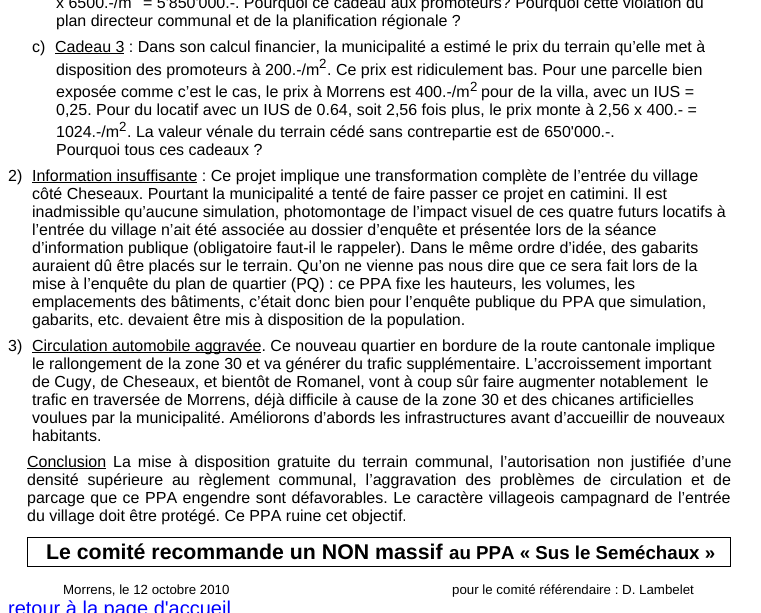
import math
import cairocffi as cairo

surface = cairo.ImageSurface(cairo.FORMAT_RGB24, 761, 613)
cr = cairo.Context(surface)
options = cairo.FontOptions()
options.set_hint_metrics(cairo.HINT_METRICS_OFF)
options.set_hint_style(cairo.HINT_STYLE_NONE)
cr.set_font_options(options)
cr.set_miter_limit(4)


def use_color(code):
    cr.set_source_rgb(*(v / 255 for v in bytes.fromhex(code[-6:])))


def spaced_text(x, y, s, letter, word):
    cr.move_to(x, y)
    for ch in s:
        cr.show_text(ch)
        cr.rel_move_to(letter + word * (ch == ' '), 0)


use_color("#ffffff")
cr.paint()
cr.select_font_face("Liberation Sans")
cr.set_font_size(16)
use_color("#000000")
cr.move_to(56, 8)
cr.show_text("x 6500.-/m")
cr.move_to(143, 8)
cr.show_text("= 5'850'000.-. Pourquoi ce cadeau aux promoteurs? Pourquoi cette violation du")
cr.move_to(56, 26)
cr.show_text("plan directeur communal et de la planification régionale ?")
cr.move_to(32, 52)
cr.show_text("c)")
cr.rectangle(55, 53, 69, 1)
cr.fill()
cr.move_to(55, 52)
cr.show_text("Cadeau 3 : Dans son calcul financier, la municipalité a estimé le prix du terrain qu’elle met à")
cr.move_to(56, 75)
cr.show_text("disposition des promoteurs à 200.-/m")
cr.set_font_size(13.3)
cr.move_to(319, 68)
cr.show_text("2")
cr.set_font_size(16)
cr.move_to(327, 75)
cr.show_text(". Ce prix est ridiculement bas. Pour une parcelle bien")
cr.move_to(56, 97)
cr.show_text("exposée comme c’est le cas, le prix à Morrens est 400.-/m")
cr.set_font_size(13.3)
cr.move_to(470, 91)
cr.show_text("2")
cr.set_font_size(16)
cr.move_to(481, 97)
cr.show_text("pour de la villa, avec un IUS =")
cr.move_to(56, 115)
cr.show_text("0,25. Pour du locatif avec un IUS de 0.64, soit 2,56 fois plus, le prix monte à 2,56 x 400.- =")
cr.move_to(56, 137)
cr.show_text("1024.-/m")
cr.set_font_size(13.3)
cr.move_to(119, 131)
cr.show_text("2")
cr.set_font_size(16)
cr.move_to(127, 137)
cr.show_text(". La valeur vénale du terrain cédé sans contrepartie est de 650'000.-.")
cr.move_to(56, 155)
cr.show_text("Pourquoi tous ces cadeaux ?")
cr.move_to(8, 181)
cr.show_text("2)")
cr.rectangle(32, 182, 165, 1)
cr.fill()
cr.move_to(32, 181)
cr.show_text("Information insuffisante : Ce projet implique une transformation complète de l’entrée du village")
cr.move_to(32, 199)
cr.show_text("côté Cheseaux. Pourtant la municipalité a tenté de faire passer ce projet en catimini. Il est")
cr.move_to(32, 217)
cr.show_text("inadmissible qu’aucune simulation, photomontage de l’impact visuel de ces quatre futurs locatifs à")
cr.move_to(32, 235)
cr.show_text("l’entrée du village n’ait été associée au dossier d’enquête et présentée lors de la séance")
cr.move_to(32, 253)
cr.show_text("d’information publique (obligatoire faut-il le rappeler). Dans le même ordre d’idée, des gabarits")
cr.move_to(32, 271)
cr.show_text("auraient dû être placés sur le terrain. Qu’on ne vienne pas nous dire que ce sera fait lors de la")
cr.move_to(32, 289)
cr.show_text("mise à l’enquête du plan de quartier (PQ) : ce PPA fixe les hauteurs, les volumes, les")
cr.move_to(32, 307)
cr.show_text("emplacements des bâtiments, c’était donc bien pour l’enquête publique du PPA que simulation,")
cr.move_to(32, 325)
cr.show_text("gabarits, etc. devaient être mis à disposition de la population.")
cr.move_to(8, 351)
cr.show_text("3)")
cr.rectangle(32, 352, 229, 1)
cr.fill()
cr.move_to(32, 351)
cr.show_text("Circulation automobile aggravée. Ce nouveau quartier en bordure de la route cantonale implique")
cr.move_to(32, 369)
cr.show_text("le rallongement de la zone 30 et va générer du trafic supplémentaire. L’accroissement important")
cr.move_to(32, 387)
cr.show_text("de Cugy, de Cheseaux, et bientôt de Romanel, vont à coup sûr faire augmenter notablement")
cr.move_to(696, 387)
cr.show_text("le")
cr.move_to(32, 405)
cr.show_text("trafic en traversée de Morrens, déjà difficile à cause de la zone 30 et des chicanes artificielles")
cr.move_to(32, 423)
cr.show_text("voulues par la municipalité. Améliorons d’abords les infrastructures avant d’accueillir de nouveaux")
cr.move_to(32, 441)
cr.show_text("habitants.")
cr.move_to(27, 467)
cr.show_text("Conclusion")
cr.rectangle(27, 468, 79, 1)
cr.fill()
spaced_text(113, 467, "La mise à disposition gratuite du terrain communal, l’autorisation non justifiée d’une", 0, 2.6)
spaced_text(27, 485, "densité supérieure au règlement communal, l’aggravation des problèmes de circulation et de", 0, 4.4)
spaced_text(27, 503, "parcage que ce PPA engendre sont défavorables. Le caractère villageois campagnard de l’entrée", 0, 1.1)
cr.move_to(27, 521)
cr.show_text("du village doit être protégé. Ce PPA ruine cet objectif.")
cr.rectangle(27.5, 537.5, 703, 29)
cr.set_line_width(1)
cr.stroke()
cr.select_font_face("Liberation Sans", cairo.FONT_SLANT_NORMAL, cairo.FONT_WEIGHT_BOLD)
cr.set_font_size(21.3)
cr.move_to(46, 559)
cr.show_text("Le comité recommande un NON massif")
cr.set_font_size(18.7)
cr.move_to(449, 559)
cr.show_text("au PPA « Sus le Seméchaux »")
cr.select_font_face("Liberation Sans")
cr.set_font_size(13.3)
cr.move_to(63, 594)
cr.show_text("Morrens, le 12 octobre 2010")
cr.move_to(452, 594)
cr.show_text("pour le comité référendaire : D. Lambelet")
cr.set_font_size(20)
use_color("#0000ff")
cr.move_to(8, 615)
cr.show_text("retour à la page d'accueil")
surface.write_to_png("result.png")
